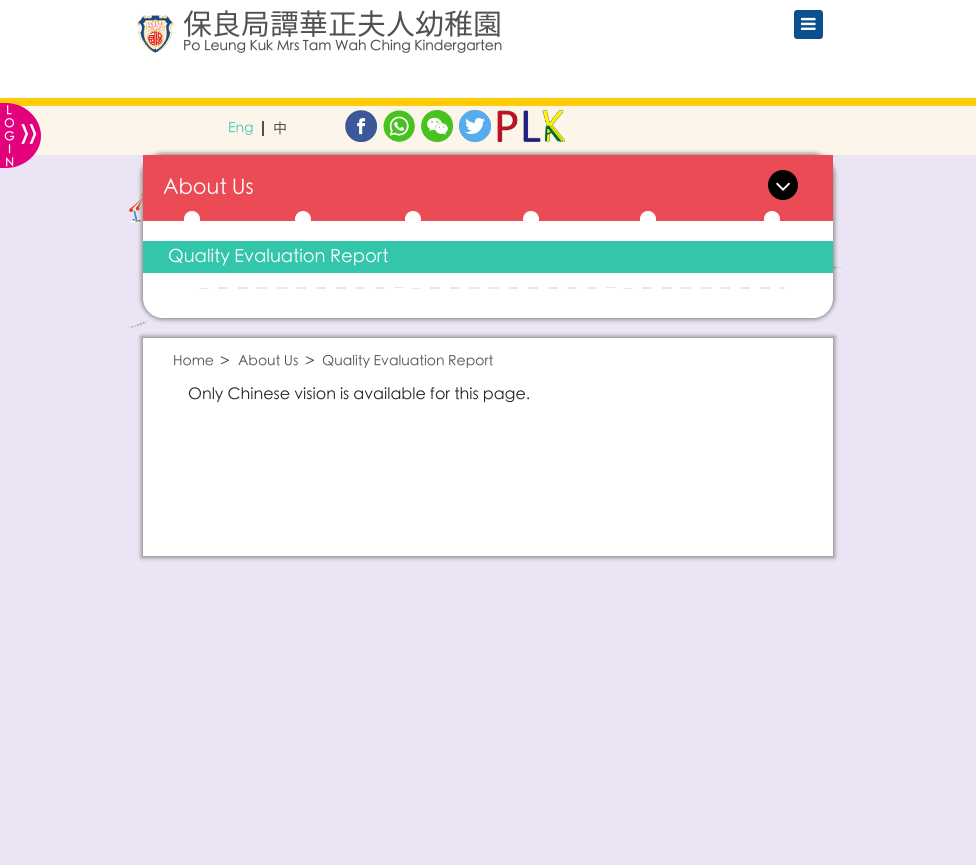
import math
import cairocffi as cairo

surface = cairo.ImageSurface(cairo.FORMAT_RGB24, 976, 865)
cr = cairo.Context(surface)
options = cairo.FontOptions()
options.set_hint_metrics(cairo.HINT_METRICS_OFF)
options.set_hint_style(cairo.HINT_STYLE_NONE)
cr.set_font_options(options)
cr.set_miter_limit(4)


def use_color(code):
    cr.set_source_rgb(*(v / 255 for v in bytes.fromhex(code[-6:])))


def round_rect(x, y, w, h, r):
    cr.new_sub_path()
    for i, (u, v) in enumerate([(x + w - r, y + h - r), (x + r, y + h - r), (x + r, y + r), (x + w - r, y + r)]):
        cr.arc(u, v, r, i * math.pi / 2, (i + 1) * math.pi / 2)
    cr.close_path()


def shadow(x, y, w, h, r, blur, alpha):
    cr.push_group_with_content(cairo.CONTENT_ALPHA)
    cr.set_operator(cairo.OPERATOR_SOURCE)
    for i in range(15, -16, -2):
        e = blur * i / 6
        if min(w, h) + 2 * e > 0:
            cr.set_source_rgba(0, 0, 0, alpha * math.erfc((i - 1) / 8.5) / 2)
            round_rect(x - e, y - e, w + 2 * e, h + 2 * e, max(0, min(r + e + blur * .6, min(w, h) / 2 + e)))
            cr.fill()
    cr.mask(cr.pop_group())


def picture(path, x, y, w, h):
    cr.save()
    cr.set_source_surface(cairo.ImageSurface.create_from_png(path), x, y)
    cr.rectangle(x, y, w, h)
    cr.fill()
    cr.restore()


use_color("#ffffff")
cr.paint()
picture("img1.png", 137, 15, 37, 38)
cr.select_font_face("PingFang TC")
cr.set_font_size(29)
use_color("#515151")
cr.move_to(183, 34)
cr.show_text("保良局譚華正夫人幼稚園")
cr.select_font_face("PingFang TC SemiBold")
cr.set_font_size(14)
cr.move_to(183, 51)
cr.show_text("Po Leung Kuk Mrs Tam Wah Ching Kindergarten")
use_color("#0a508e")
round_rect(794, 10, 29, 29, 3)
cr.fill()
picture("img2.png", 801, 17, 15, 13)
use_color("#fcf5e9")
cr.rectangle(0, 97, 976, 58)
cr.fill()
use_color("#ffcc0a")
cr.rectangle(0, 98, 976, 8)
cr.fill()
use_color("#eae4f4")
cr.rectangle(0, 155, 976, 710)
cr.fill()
use_color("#e4007c")
cr.new_path()
cr.move_to(-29, 103)
cr.line_to(6, 103)
cr.curve_to(25, 103, 41, 118, 41, 136)
cr.curve_to(41, 153, 25, 168, 6, 168)
cr.line_to(-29, 168)
cr.close_path()
cr.fill()
cr.select_font_face("PingFang TC", cairo.FONT_SLANT_NORMAL, cairo.FONT_WEIGHT_BOLD)
cr.set_font_size(12)
use_color("#ffffff")
cr.move_to(6, 115)
cr.show_text("L")
cr.move_to(4, 128)
cr.show_text("O")
cr.move_to(4, 141)
cr.show_text("G")
cr.move_to(8, 154)
cr.show_text("I")
cr.move_to(5, 167)
cr.show_text("N")
cr.select_font_face("PingFang TC")
cr.set_font_size(37)
cr.move_to(21, 146)
cr.show_text("»")
cr.set_font_size(14)
use_color("#4bc1bb")
cr.move_to(228, 133)
cr.show_text("Eng")
use_color("#515151")
cr.rectangle(262, 121, 2, 15)
cr.fill()
cr.move_to(273, 133)
cr.show_text("中")
picture("img3.png", 345, 110, 32, 32)
picture("img4.png", 383, 110, 32, 32)
picture("img5.png", 421, 110, 32, 32)
picture("img6.png", 459, 110, 32, 32)
picture("img7.png", 497, 110, 68, 32)
picture("img8.png", 129, 193, 14, 30)
picture("img11.png", 833, 265, 9, 5)
picture("img12.png", 128, 320, 20, 9)
use_color("#969696")
shadow(141, 153, 694, 167, 22, 2, 1)
use_color("#ffffff")
cr.new_path()
cr.move_to(143, 155)
cr.line_to(833, 155)
cr.line_to(833, 298)
cr.curve_to(833, 309, 824, 318, 813, 318)
cr.line_to(163, 318)
cr.curve_to(152, 318, 143, 309, 143, 298)
cr.close_path()
cr.fill()
use_color("#eb4b55")
cr.rectangle(143, 155, 690, 66)
cr.fill()
cr.set_font_size(21)
use_color("#ffffff")
cr.move_to(163, 195)
cr.show_text("About Us")
use_color("#000000")
cr.new_path()
cr.arc(783, 185, 14.5, 0, 2 * math.pi)
cr.fill_preserve()
cr.set_line_width(1)
cr.stroke()
picture("img9.png", 776, 182, 14, 9)
use_color("#ffffff")
cr.arc(192, 219, 7.5, 0, 2 * math.pi)
cr.fill_preserve()
cr.stroke()
cr.arc(303, 219, 7.5, 0, 2 * math.pi)
cr.fill_preserve()
cr.stroke()
cr.arc(413, 219, 7.5, 0, 2 * math.pi)
cr.fill_preserve()
cr.stroke()
cr.arc(531, 219, 7.5, 0, 2 * math.pi)
cr.fill_preserve()
cr.stroke()
cr.arc(648, 219, 7.5, 0, 2 * math.pi)
cr.fill_preserve()
cr.stroke()
cr.arc(772, 219, 7.5, 0, 2 * math.pi)
cr.fill_preserve()
cr.stroke()
use_color("#34c6ab")
cr.rectangle(143, 241, 690, 32)
cr.fill()
cr.set_font_size(18)
use_color("#ffffff")
cr.move_to(168, 263)
cr.show_text("Quality Evaluation Report")
picture("img10.png", 199, 287, 586, 2)
use_color("#969696")
shadow(141, 336, 694, 222, 0, 2, 1)
use_color("#ffffff")
cr.rectangle(143, 338, 690, 218)
cr.fill()
cr.set_font_size(14)
use_color("#515151")
cr.move_to(173, 366)
cr.show_text("Home")
cr.set_font_size(16)
cr.move_to(220, 367)
cr.show_text(">")
cr.set_font_size(14)
cr.move_to(238, 366)
cr.show_text("About Us")
cr.set_font_size(16)
cr.move_to(305, 367)
cr.show_text(">")
cr.set_font_size(14)
cr.move_to(322, 366)
cr.show_text("Quality Evaluation Report")
cr.set_font_size(16)
use_color("#212529")
cr.move_to(188, 400)
cr.show_text("Only Chinese vision is available for this page.")
surface.write_to_png("result.png")
